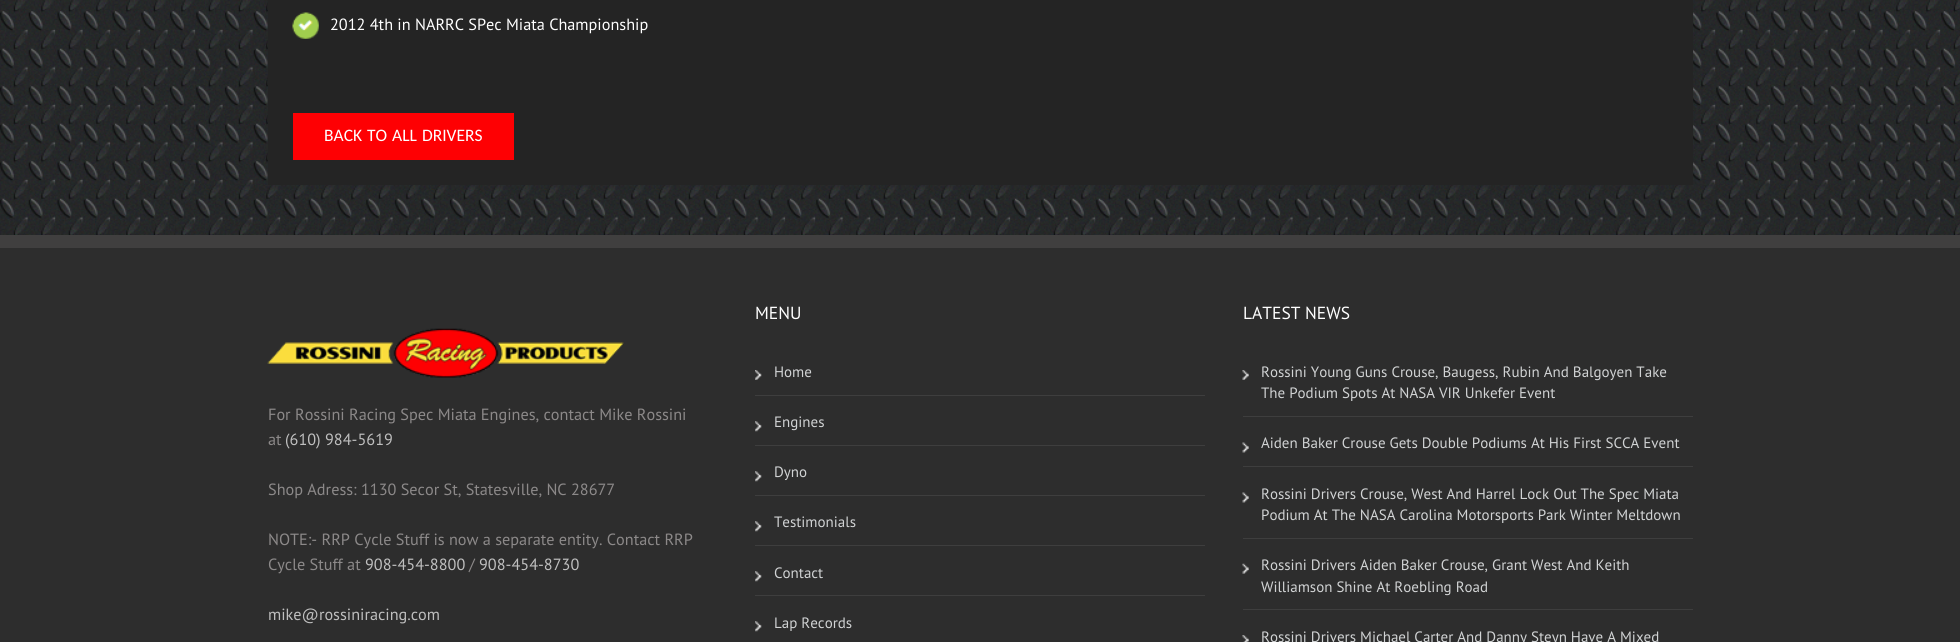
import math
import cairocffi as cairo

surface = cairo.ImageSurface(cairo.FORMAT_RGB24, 1960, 642)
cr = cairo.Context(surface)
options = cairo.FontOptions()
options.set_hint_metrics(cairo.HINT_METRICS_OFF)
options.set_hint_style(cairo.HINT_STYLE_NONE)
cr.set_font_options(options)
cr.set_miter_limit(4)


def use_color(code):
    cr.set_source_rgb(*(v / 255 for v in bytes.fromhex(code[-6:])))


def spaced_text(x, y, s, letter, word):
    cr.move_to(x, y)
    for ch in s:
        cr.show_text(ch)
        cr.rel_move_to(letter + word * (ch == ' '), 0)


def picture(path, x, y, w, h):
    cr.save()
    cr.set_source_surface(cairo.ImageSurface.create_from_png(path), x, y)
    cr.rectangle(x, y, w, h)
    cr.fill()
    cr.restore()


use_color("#ffffff")
cr.paint()
picture("img1.png", 0, 0, 1960, 235)
use_color("#242424")
cr.rectangle(268, 0, 1425, 185)
cr.fill()
picture("img2.png", 292, 12, 27, 27)
cr.select_font_face("PT Sans")
cr.set_font_size(16.25)
use_color("#ffffff")
cr.move_to(330, 30)
cr.show_text("2012 4th in NARRC SPec Miata Championship")
use_color("#fe0003")
cr.rectangle(293, 113, 221, 47)
cr.fill()
cr.select_font_face("Carlito")
cr.set_font_size(17.5)
use_color("#ffffff")
spaced_text(324, 141, "BACK TO ALL DRIVERS", 0, 1)
use_color("#2d2d2d")
cr.rectangle(0, 248, 1960, 394)
cr.fill()
use_color("#403f3f")
cr.rectangle(0, 235, 1960, 13)
cr.fill()
picture("img3.png", 267, 328, 357, 50)
cr.select_font_face("PT Sans")
cr.set_font_size(16.25)
use_color("#8c8989")
cr.move_to(268, 420)
cr.show_text("For Rossini Racing Spec Miata Engines, contact Mike Rossini")
cr.move_to(268, 445)
cr.show_text("at")
use_color("#bfbfbf")
cr.move_to(285, 445)
cr.show_text("(610) 984-5619")
use_color("#8c8989")
cr.move_to(268, 495)
cr.show_text("Shop Adress: 1130 Secor St, Statesville, NC 28677")
cr.move_to(268, 545)
cr.show_text("NOTE:- RRP Cycle Stuff is now a separate entity. Contact RRP")
cr.move_to(268, 570)
cr.show_text("Cycle Stuff at")
use_color("#bfbfbf")
cr.move_to(365, 570)
cr.show_text("908-454-8800")
use_color("#8c8989")
cr.move_to(469, 570)
cr.show_text("/")
use_color("#bfbfbf")
cr.move_to(479, 570)
cr.show_text("908-454-8730")
cr.move_to(268, 620)
cr.show_text("mike@rossiniracing.com")
cr.set_font_size(17.5)
use_color("#ffffff")
cr.move_to(755, 319)
cr.show_text("MENU")
use_color("#3e3e3e")
cr.rectangle(755, 395, 450, 1)
cr.fill()
picture("img4.png", 755, 370, 7, 10)
cr.set_font_size(15)
use_color("#d1d3d4")
cr.move_to(774, 377)
cr.show_text("Home")
use_color("#3e3e3e")
cr.rectangle(755, 445, 450, 1)
cr.fill()
picture("img5.png", 755, 421, 7, 11)
use_color("#d1d3d4")
cr.move_to(774, 427)
cr.show_text("Engines")
use_color("#3e3e3e")
cr.rectangle(755, 495, 450, 1)
cr.fill()
picture("img5.png", 755, 471, 7, 11)
use_color("#d1d3d4")
cr.move_to(774, 477)
cr.show_text("Dyno")
use_color("#3e3e3e")
cr.rectangle(755, 545, 450, 1)
cr.fill()
picture("img5.png", 755, 521, 7, 11)
use_color("#d1d3d4")
cr.move_to(774, 527)
cr.show_text("Testimonials")
use_color("#3e3e3e")
cr.rectangle(755, 595, 450, 1)
cr.fill()
picture("img5.png", 755, 571, 7, 11)
use_color("#d1d3d4")
cr.move_to(774, 578)
cr.show_text("Contact")
picture("img5.png", 755, 621, 7, 11)
cr.move_to(774, 628)
cr.show_text("Lap Records")
cr.set_font_size(17.5)
use_color("#ffffff")
cr.move_to(1243, 319)
cr.show_text("LATEST NEWS")
use_color("#3e3e3e")
cr.rectangle(1243, 416, 450, 1)
cr.fill()
picture("img6.png", 1242, 370, 7, 10)
cr.set_font_size(15)
use_color("#d1d3d4")
cr.move_to(1261, 377)
cr.show_text("Rossini Young Guns Crouse, Baugess, Rubin And Balgoyen Take")
cr.move_to(1261, 398)
cr.show_text("The Podium Spots At NASA VIR Unkefer Event")
use_color("#3e3e3e")
cr.rectangle(1243, 466, 450, 1)
cr.fill()
picture("img7.png", 1242, 442, 7, 11)
use_color("#d1d3d4")
cr.move_to(1261, 448)
cr.show_text("Aiden Baker Crouse Gets Double Podiums At His First SCCA Event")
use_color("#3e3e3e")
cr.rectangle(1243, 538, 450, 1)
cr.fill()
picture("img7.png", 1242, 492, 7, 11)
use_color("#d1d3d4")
cr.move_to(1261, 499)
cr.show_text("Rossini Drivers Crouse, West And Harrel Lock Out The Spec Miata")
cr.move_to(1261, 520)
cr.show_text("Podium At The NASA Carolina Motorsports Park Winter Meltdown")
use_color("#3e3e3e")
cr.rectangle(1243, 609, 450, 1)
cr.fill()
picture("img8.png", 1242, 563, 7, 11)
use_color("#d1d3d4")
cr.move_to(1261, 570)
cr.show_text("Rossini Drivers Aiden Baker Crouse, Grant West And Keith")
cr.move_to(1261, 592)
cr.show_text("Williamson Shine At Roebling Road")
picture("img9.png", 1242, 635, 7, 7)
cr.move_to(1261, 642)
cr.show_text("Rossini Drivers Michael Carter And Danny Steyn Have A Mixed")
surface.write_to_png("result.png")
